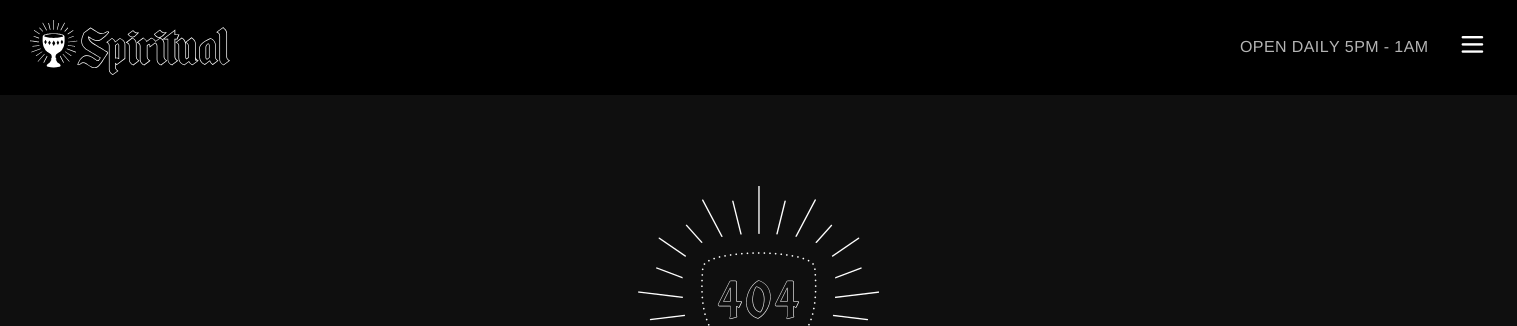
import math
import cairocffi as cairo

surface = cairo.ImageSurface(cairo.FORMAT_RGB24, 1517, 326)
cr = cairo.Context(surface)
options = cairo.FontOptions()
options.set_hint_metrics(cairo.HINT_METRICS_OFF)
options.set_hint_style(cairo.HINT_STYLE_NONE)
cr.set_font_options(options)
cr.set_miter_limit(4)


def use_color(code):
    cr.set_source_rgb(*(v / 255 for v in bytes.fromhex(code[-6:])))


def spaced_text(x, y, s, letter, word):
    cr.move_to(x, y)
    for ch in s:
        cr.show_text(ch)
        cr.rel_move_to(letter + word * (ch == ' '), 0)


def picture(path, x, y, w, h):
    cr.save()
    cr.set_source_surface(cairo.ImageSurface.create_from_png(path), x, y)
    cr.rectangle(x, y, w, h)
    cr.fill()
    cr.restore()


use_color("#0f0f0f")
cr.paint()
use_color("#000000")
cr.rectangle(0, 0, 1517, 95)
cr.fill()
picture("img1.png", 30, 20, 200, 55)
cr.select_font_face("Liberation Sans")
cr.set_font_size(16)
use_color("#b4b4b4")
spaced_text(1240, 52, "OPEN DAILY 5PM - 1AM", 0.4, 0)
picture("img2.png", 1461, 36, 23, 17)
picture("img3.png", 638, 186, 241, 140)
surface.write_to_png("result.png")
